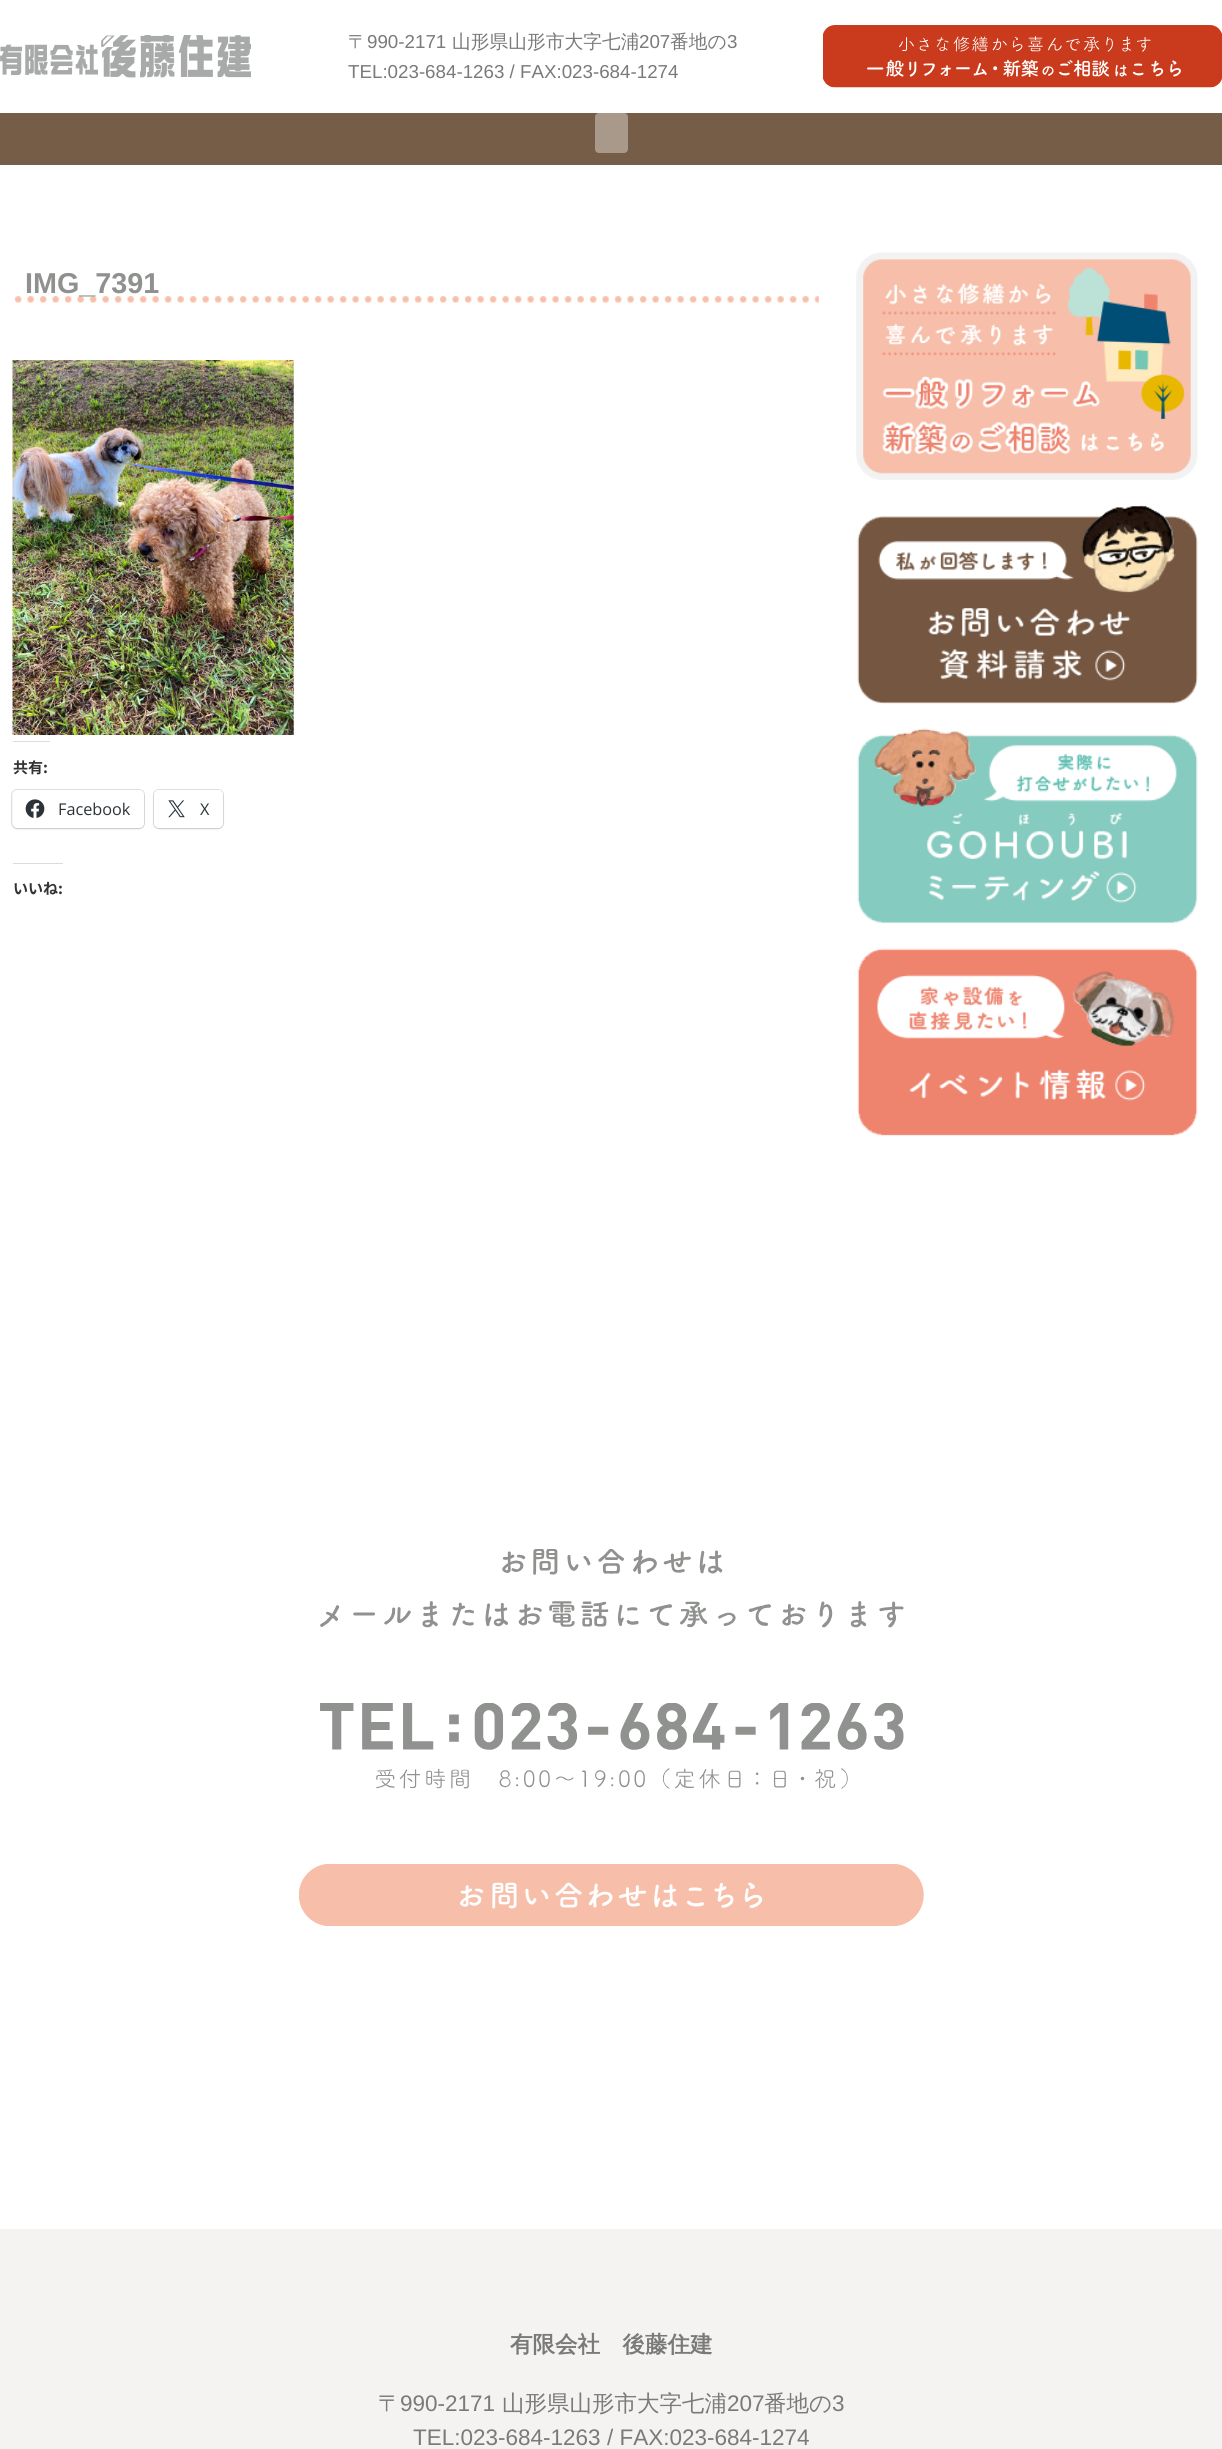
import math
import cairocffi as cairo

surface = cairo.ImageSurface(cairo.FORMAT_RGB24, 1222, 2449)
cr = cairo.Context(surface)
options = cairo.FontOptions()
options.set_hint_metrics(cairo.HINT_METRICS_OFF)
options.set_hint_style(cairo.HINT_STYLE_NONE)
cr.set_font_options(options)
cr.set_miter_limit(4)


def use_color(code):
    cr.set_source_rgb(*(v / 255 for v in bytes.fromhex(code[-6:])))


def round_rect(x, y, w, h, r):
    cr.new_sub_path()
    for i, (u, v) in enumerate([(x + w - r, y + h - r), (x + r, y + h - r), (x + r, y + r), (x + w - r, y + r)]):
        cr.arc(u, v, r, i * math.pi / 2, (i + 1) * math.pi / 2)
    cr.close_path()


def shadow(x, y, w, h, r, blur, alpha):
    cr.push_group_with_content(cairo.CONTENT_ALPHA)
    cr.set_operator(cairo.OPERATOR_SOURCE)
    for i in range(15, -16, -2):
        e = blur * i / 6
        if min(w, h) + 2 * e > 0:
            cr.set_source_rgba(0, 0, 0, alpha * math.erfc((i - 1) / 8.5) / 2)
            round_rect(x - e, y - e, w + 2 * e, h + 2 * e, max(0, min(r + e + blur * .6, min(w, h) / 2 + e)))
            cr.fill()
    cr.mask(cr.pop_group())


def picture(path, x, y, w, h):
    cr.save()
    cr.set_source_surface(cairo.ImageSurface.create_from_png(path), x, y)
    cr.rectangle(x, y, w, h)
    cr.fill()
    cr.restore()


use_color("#ffffff")
cr.paint()
picture("img1.png", 0, 35, 251, 43)
cr.select_font_face("WenQuanYi Zen Hei Medium")
cr.set_font_size(18.75)
use_color("#7a7a7a")
cr.move_to(348, 48)
cr.show_text("〒")
cr.select_font_face("Liberation Sans")
cr.move_to(367, 48)
cr.show_text("990-2171")
cr.select_font_face("WenQuanYi Zen Hei Medium")
cr.move_to(452, 48)
cr.show_text("山形県山形市大字七浦")
cr.select_font_face("Liberation Sans")
cr.move_to(639, 48)
cr.show_text("207")
cr.select_font_face("WenQuanYi Zen Hei Medium")
cr.move_to(670, 48)
cr.show_text("番地の")
cr.select_font_face("Liberation Sans")
cr.move_to(727, 48)
cr.show_text("3")
cr.move_to(348, 78)
cr.show_text("TEL:023-684-1263 / FAX:023-684-1274")
picture("img2.png", 823, 25, 399, 63)
use_color("#765d47")
cr.rectangle(0, 113, 1222, 52)
cr.fill()
use_color("#a9998b")
round_rect(595, 113, 33, 40, 4)
cr.fill()
picture("img3.png", 14, 296, 805, 7)
cr.select_font_face("Liberation Sans", cairo.FONT_SLANT_NORMAL, cairo.FONT_WEIGHT_BOLD)
cr.set_font_size(28.75)
use_color("#8f918e")
cr.move_to(25, 293)
cr.show_text("IMG_7391")
picture("img4.png", 12, 360, 282, 375)
use_color("#dcdcde")
cr.rectangle(13, 741, 37, 1)
cr.fill()
cr.select_font_face("Noto Sans JP", cairo.FONT_SLANT_NORMAL, cairo.FONT_WEIGHT_BOLD)
cr.set_font_size(15)
use_color("#333333")
cr.move_to(13, 773)
cr.show_text("共有:")
round_rect(11.5, 789.5, 133, 39, 5.5)
use_color("#e0e0e0")
cr.set_line_width(1)
cr.stroke()
use_color("#000000")
shadow(13, 791, 131, 38, 5, 1, 0.12)
use_color("#ffffff")
round_rect(13, 790, 131, 38, 5)
cr.fill()
picture("img5.png", 25, 799, 20, 19)
cr.select_font_face("Open Sans")
cr.set_font_size(16.25)
use_color("#2c3338")
cr.move_to(58, 815)
cr.show_text("Facebook")
round_rect(153.5, 789.5, 70, 39, 5.5)
use_color("#e0e0e0")
cr.stroke()
use_color("#000000")
shadow(154, 791, 69, 38, 5, 1, 0.12)
use_color("#ffffff")
round_rect(154, 790, 69, 38, 5)
cr.fill()
picture("img6.png", 168, 800, 17, 18)
use_color("#2c3338")
cr.move_to(200, 815)
cr.show_text("X")
use_color("#dcdcde")
cr.rectangle(13, 863, 50, 1)
cr.fill()
cr.select_font_face("Noto Sans JP", cairo.FONT_SLANT_NORMAL, cairo.FONT_WEIGHT_BOLD)
cr.set_font_size(15)
use_color("#333333")
cr.move_to(13, 894)
cr.show_text("いいね:")
picture("img7.png", 856, 252, 342, 228)
picture("img8.png", 857, 505, 341, 199)
picture("img9.png", 857, 728, 341, 196)
picture("img10.png", 857, 948, 341, 188)
picture("img11.png", 320, 1549, 584, 79)
picture("img12.png", 320, 1703, 584, 86)
picture("img13.png", 299, 1864, 625, 62)
use_color("#f4f3f2")
cr.rectangle(0, 2229, 1222, 220)
cr.fill()
cr.select_font_face("WenQuanYi Zen Hei", cairo.FONT_SLANT_NORMAL, cairo.FONT_WEIGHT_BOLD)
cr.set_font_size(22.5)
use_color("#7a7a7a")
cr.move_to(510, 2352)
cr.show_text("有限会社　後藤住建")
cr.select_font_face("WenQuanYi Zen Hei Medium")
cr.move_to(378, 2411)
cr.show_text("〒")
cr.select_font_face("Liberation Sans")
cr.move_to(400, 2411)
cr.show_text("990-2171")
cr.select_font_face("WenQuanYi Zen Hei Medium")
cr.move_to(502, 2411)
cr.show_text("山形県山形市大字七浦")
cr.select_font_face("Liberation Sans")
cr.move_to(727, 2411)
cr.show_text("207")
cr.select_font_face("WenQuanYi Zen Hei Medium")
cr.move_to(764, 2411)
cr.show_text("番地の")
cr.select_font_face("Liberation Sans")
cr.move_to(832, 2411)
cr.show_text("3")
cr.move_to(413, 2445)
cr.show_text("TEL:023-684-1263 / FAX:023-684-1274")
surface.write_to_png("result.png")
